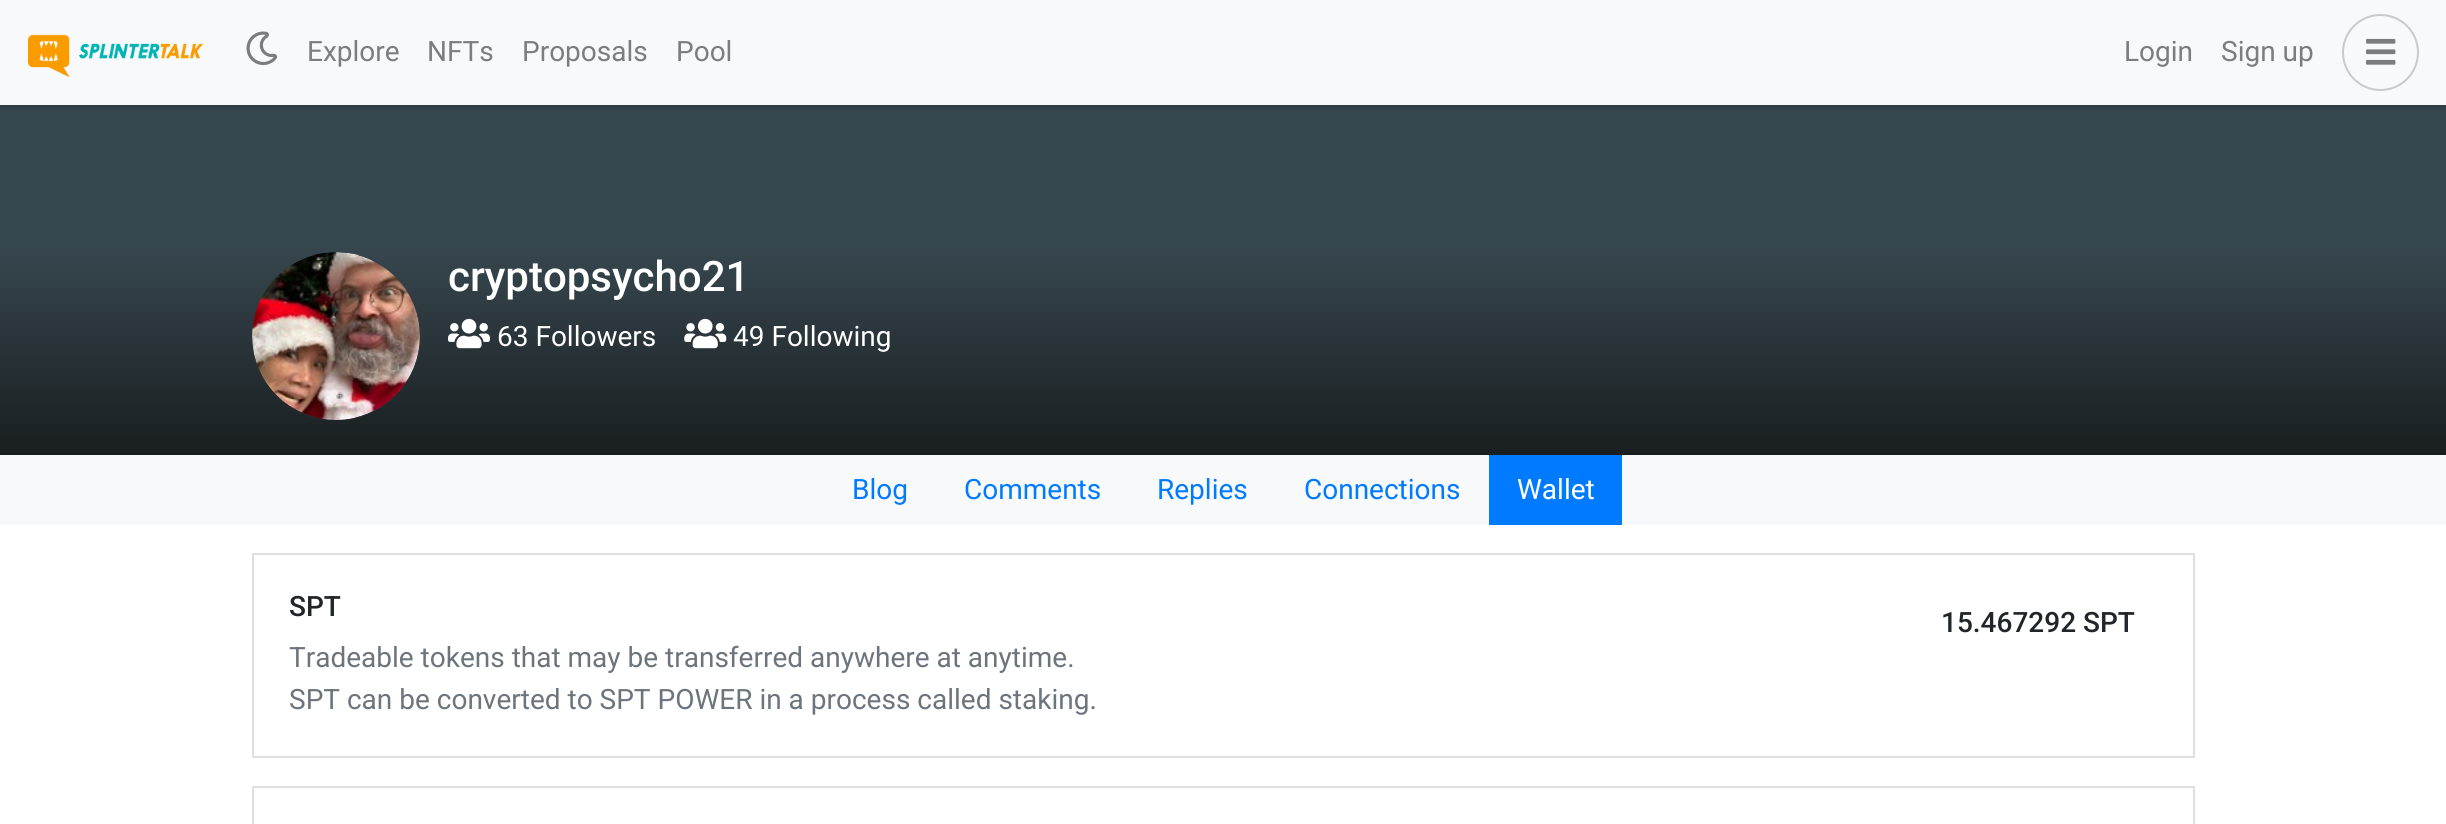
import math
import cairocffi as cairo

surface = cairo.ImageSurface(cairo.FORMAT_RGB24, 2446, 824)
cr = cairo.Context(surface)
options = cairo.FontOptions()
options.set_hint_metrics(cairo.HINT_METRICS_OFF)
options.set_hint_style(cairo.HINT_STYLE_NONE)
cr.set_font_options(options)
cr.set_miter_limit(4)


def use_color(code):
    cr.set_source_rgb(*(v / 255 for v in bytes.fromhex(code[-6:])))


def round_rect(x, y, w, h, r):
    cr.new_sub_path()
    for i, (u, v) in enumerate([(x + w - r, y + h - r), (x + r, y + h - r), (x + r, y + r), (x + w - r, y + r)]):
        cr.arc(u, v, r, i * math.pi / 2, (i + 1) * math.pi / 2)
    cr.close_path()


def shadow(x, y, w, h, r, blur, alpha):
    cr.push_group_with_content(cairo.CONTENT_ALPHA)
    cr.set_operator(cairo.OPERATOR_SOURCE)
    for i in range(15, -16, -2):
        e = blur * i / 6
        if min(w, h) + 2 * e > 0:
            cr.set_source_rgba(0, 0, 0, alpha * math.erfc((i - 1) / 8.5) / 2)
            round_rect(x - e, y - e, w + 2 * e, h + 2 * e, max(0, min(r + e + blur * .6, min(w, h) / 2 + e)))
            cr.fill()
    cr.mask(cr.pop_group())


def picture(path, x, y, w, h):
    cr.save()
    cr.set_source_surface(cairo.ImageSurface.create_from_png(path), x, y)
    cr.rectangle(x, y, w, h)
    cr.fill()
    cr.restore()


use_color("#ffffff")
cr.paint()
gradient = cairo.LinearGradient(1223, 105, 1223, 455)
gradient.add_color_stop_rgba(0, 0.216, 0.278, 0.31, 1)
gradient.add_color_stop_rgba(0.4, 0.216, 0.278, 0.31, 1)
gradient.add_color_stop_rgba(1, 0.098, 0.118, 0.125, 1)
cr.set_source(gradient)
cr.rectangle(0, 105, 2446, 350)
cr.fill()
use_color("#000000")
shadow(0, 2, 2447, 105, 0, 2, 0.14)
shadow(0, 2, 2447, 105, 0, 2.5, 0.07)
use_color("#f8f9fa")
cr.rectangle(0, 0, 2446, 105)
cr.fill()
picture("img1.png", 28, 34, 175, 43)
picture("img2.png", 246, 31, 31, 35)
cr.select_font_face("Roboto")
cr.set_font_size(28)
use_color("#7c7d7d")
cr.move_to(307, 61)
cr.show_text("Explore")
cr.move_to(427, 61)
cr.show_text("NFTs")
cr.move_to(522, 61)
cr.show_text("Proposals")
cr.move_to(676, 61)
cr.show_text("Pool")
cr.move_to(2124, 61)
cr.show_text("Login")
cr.move_to(2221, 61)
cr.show_text("Sign up")
cr.new_path()
cr.arc(2380.5, 52.5, 37.5, 0, 2 * math.pi)
use_color("#cacaca")
cr.stroke()
picture("img3.png", 2366, 38, 30, 27)
use_color("#343a40")
cr.arc(336, 336, 84, 0, 2 * math.pi)
cr.fill()
picture("img4.png", 252, 252, 168, 168)
cr.select_font_face("Roboto Medium")
cr.set_font_size(42)
use_color("#ffffff")
cr.move_to(448, 291)
cr.show_text("cryptopsycho21")
picture("img5.png", 448, 318, 42, 31)
cr.select_font_face("Roboto")
cr.set_font_size(28)
cr.move_to(497, 346)
cr.show_text("63 Followers")
picture("img6.png", 684, 318, 43, 31)
cr.move_to(733, 346)
cr.show_text("49 Following")
use_color("#f8f9fa")
cr.rectangle(0, 455, 2446, 70)
cr.fill()
use_color("#007bff")
cr.move_to(852, 499)
cr.show_text("Blog")
cr.move_to(964, 499)
cr.show_text("Comments")
cr.move_to(1157, 499)
cr.show_text("Replies")
cr.move_to(1304, 499)
cr.show_text("Connections")
cr.rectangle(1489, 455, 133, 70)
cr.fill()
use_color("#ffffff")
cr.move_to(1517, 499)
cr.show_text("Wallet")
cr.rectangle(253, 554, 1941, 203)
use_color("#dfdfdf")
cr.stroke()
cr.select_font_face("Roboto Medium")
use_color("#212529")
cr.move_to(289, 616)
cr.show_text("SPT")
cr.select_font_face("Roboto")
use_color("#6c757d")
cr.move_to(289, 667)
cr.show_text("Tradeable tokens that may be transferred anywhere at anytime.")
cr.move_to(289, 709)
cr.show_text("SPT can be converted to SPT POWER in a process called staking.")
cr.select_font_face("Roboto Medium")
use_color("#212529")
cr.move_to(1941, 632)
cr.show_text("15.467292 SPT")
cr.rectangle(253, 787, 1941, 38)
use_color("#dfdfdf")
cr.stroke()
surface.write_to_png("result.png")
